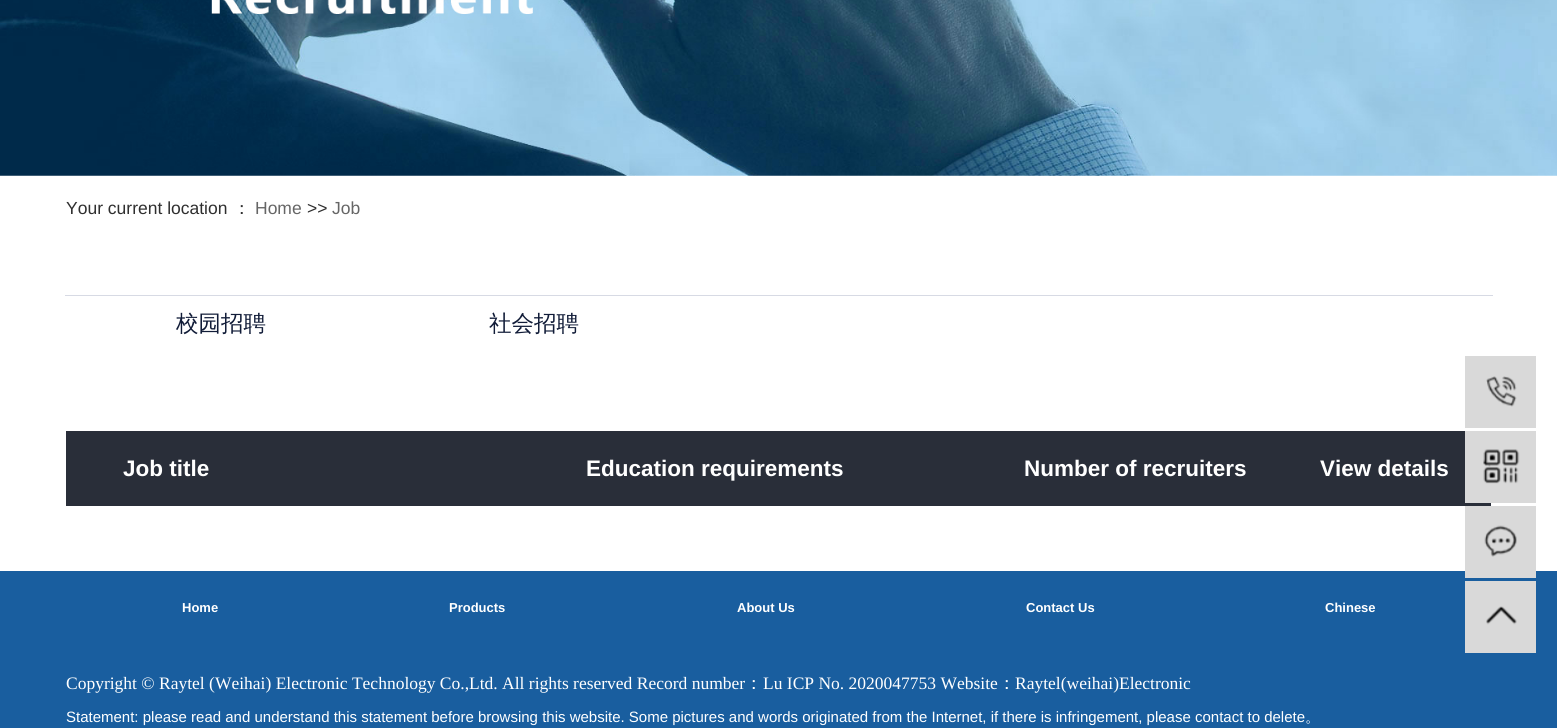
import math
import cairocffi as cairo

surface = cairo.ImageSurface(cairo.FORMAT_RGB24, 1557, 728)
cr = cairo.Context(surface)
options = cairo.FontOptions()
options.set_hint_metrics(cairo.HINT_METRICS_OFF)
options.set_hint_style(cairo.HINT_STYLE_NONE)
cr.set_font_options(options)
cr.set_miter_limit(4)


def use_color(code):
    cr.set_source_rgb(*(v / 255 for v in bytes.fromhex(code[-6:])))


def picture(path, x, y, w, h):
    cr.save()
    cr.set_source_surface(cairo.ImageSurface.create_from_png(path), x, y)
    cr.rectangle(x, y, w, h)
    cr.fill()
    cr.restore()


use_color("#ffffff")
cr.paint()
picture("img1.png", 0, 0, 1557, 176)
cr.select_font_face("Liberation Sans")
cr.set_font_size(17.5)
use_color("#2f2f2f")
cr.move_to(66, 214)
cr.show_text("Your current location")
cr.select_font_face("WenQuanYi Zen Hei Medium")
cr.move_to(233, 214)
cr.show_text("：")
cr.select_font_face("Liberation Sans")
use_color("#666666")
cr.move_to(255, 214)
cr.show_text("Home")
use_color("#2f2f2f")
cr.move_to(307, 214)
cr.show_text(">>")
use_color("#666666")
cr.move_to(332, 214)
cr.show_text("Job")
use_color("#d7dae4")
cr.rectangle(65, 295, 1428, 1)
cr.fill()
cr.select_font_face("WenQuanYi Zen Hei Medium")
cr.set_font_size(22.5)
use_color("#111c38")
cr.move_to(176, 331)
cr.show_text("校园招聘")
cr.move_to(489, 331)
cr.show_text("社会招聘")
use_color("#292e39")
cr.rectangle(66, 431, 1425, 75)
cr.fill()
cr.select_font_face("Liberation Sans", cairo.FONT_SLANT_NORMAL, cairo.FONT_WEIGHT_BOLD)
use_color("#ffffff")
cr.move_to(123, 476)
cr.show_text("Job title")
cr.move_to(586, 476)
cr.show_text("Education requirements")
cr.move_to(1024, 476)
cr.show_text("Number of recruiters")
cr.move_to(1320, 476)
cr.show_text("View details")
use_color("#d9d9d9")
cr.rectangle(1465, 356, 71, 72)
cr.fill()
picture("img2.png", 1486, 376, 31, 31)
cr.rectangle(1465, 431, 71, 72)
cr.fill()
picture("img3.png", 1483, 449, 37, 35)
use_color("#195e9f")
cr.rectangle(0, 571, 1557, 157)
cr.fill()
use_color("#d9d9d9")
cr.rectangle(1465, 506, 71, 72)
cr.fill()
picture("img4.png", 1484, 525, 33, 32)
cr.rectangle(1465, 581, 71, 72)
cr.fill()
picture("img5.png", 1486, 606, 31, 19)
cr.set_font_size(13)
use_color("#ffffff")
cr.move_to(182, 612)
cr.show_text("Home")
cr.move_to(449, 612)
cr.show_text("Products")
cr.move_to(737, 612)
cr.show_text("About Us")
cr.move_to(1026, 612)
cr.show_text("Contact Us")
cr.move_to(1325, 612)
cr.show_text("Chinese")
cr.select_font_face("Liberation Serif")
cr.set_font_size(17.5)
cr.move_to(66, 689)
cr.show_text("Copyright © Raytel (Weihai) Electronic Technology Co.,Ltd. All rights reserved Record number")
cr.select_font_face("WenQuanYi Zen Hei Medium")
cr.move_to(745, 689)
cr.show_text("：")
cr.select_font_face("Liberation Serif")
cr.move_to(763, 689)
cr.show_text("Lu ICP No. 2020047753 Website")
cr.select_font_face("WenQuanYi Zen Hei Medium")
cr.move_to(998, 689)
cr.show_text("：")
cr.select_font_face("Liberation Serif")
cr.move_to(1015, 689)
cr.show_text("Raytel(weihai)Electronic")
cr.select_font_face("Liberation Sans")
cr.set_font_size(15)
cr.move_to(66, 722)
cr.show_text("Statement: please read and understand this statement before browsing this website. Some pictures and words originated from the Internet, if there is infringement, please contact to delete")
cr.select_font_face("WenQuanYi Zen Hei Medium")
cr.move_to(1305, 722)
cr.show_text("。")
surface.write_to_png("result.png")
